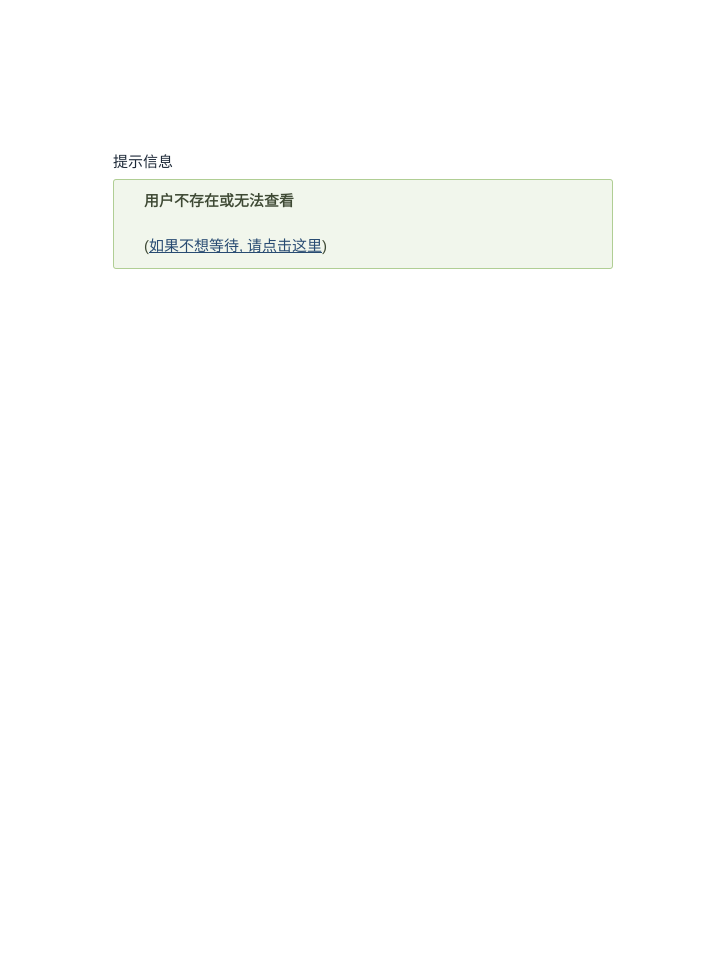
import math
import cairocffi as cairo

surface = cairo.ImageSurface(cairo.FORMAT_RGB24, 725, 979)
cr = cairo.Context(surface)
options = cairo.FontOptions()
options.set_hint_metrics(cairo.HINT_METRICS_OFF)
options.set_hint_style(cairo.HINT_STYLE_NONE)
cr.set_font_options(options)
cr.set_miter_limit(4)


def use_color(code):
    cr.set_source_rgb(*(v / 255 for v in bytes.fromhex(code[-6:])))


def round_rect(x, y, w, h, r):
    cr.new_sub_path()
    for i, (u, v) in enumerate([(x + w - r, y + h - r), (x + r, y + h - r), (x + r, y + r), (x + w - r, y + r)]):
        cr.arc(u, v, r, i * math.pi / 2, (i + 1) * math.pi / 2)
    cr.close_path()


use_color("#ffffff")
cr.paint()
cr.select_font_face("Noto Sans CJK SC")
cr.set_font_size(15)
use_color("#1c2837")
cr.move_to(113, 167)
cr.show_text("提示信息")
use_color("#f1f6ec")
round_rect(113.5, 179.5, 499, 89, 2.5)
cr.fill_preserve()
use_color("#b0ce94")
cr.set_line_width(1)
cr.stroke()
cr.select_font_face("Noto Sans CJK SC", cairo.FONT_SLANT_NORMAL, cairo.FONT_WEIGHT_BOLD)
use_color("#3e4934")
cr.move_to(144, 206)
cr.show_text("用户不存在或无法查看")
cr.select_font_face("Liberation Sans")
cr.move_to(144, 251)
cr.show_text("(")
use_color("#284b72")
cr.rectangle(149, 252, 173, 1)
cr.fill()
cr.select_font_face("Noto Sans CJK SC")
cr.move_to(149, 251)
cr.show_text("如果不想等待")
cr.select_font_face("Liberation Sans")
cr.move_to(239, 251)
cr.show_text(",")
cr.select_font_face("Noto Sans CJK SC")
cr.move_to(247, 251)
cr.show_text("请点击这里")
cr.select_font_face("Liberation Sans")
use_color("#3e4934")
cr.move_to(322, 251)
cr.show_text(")")
surface.write_to_png("result.png")
